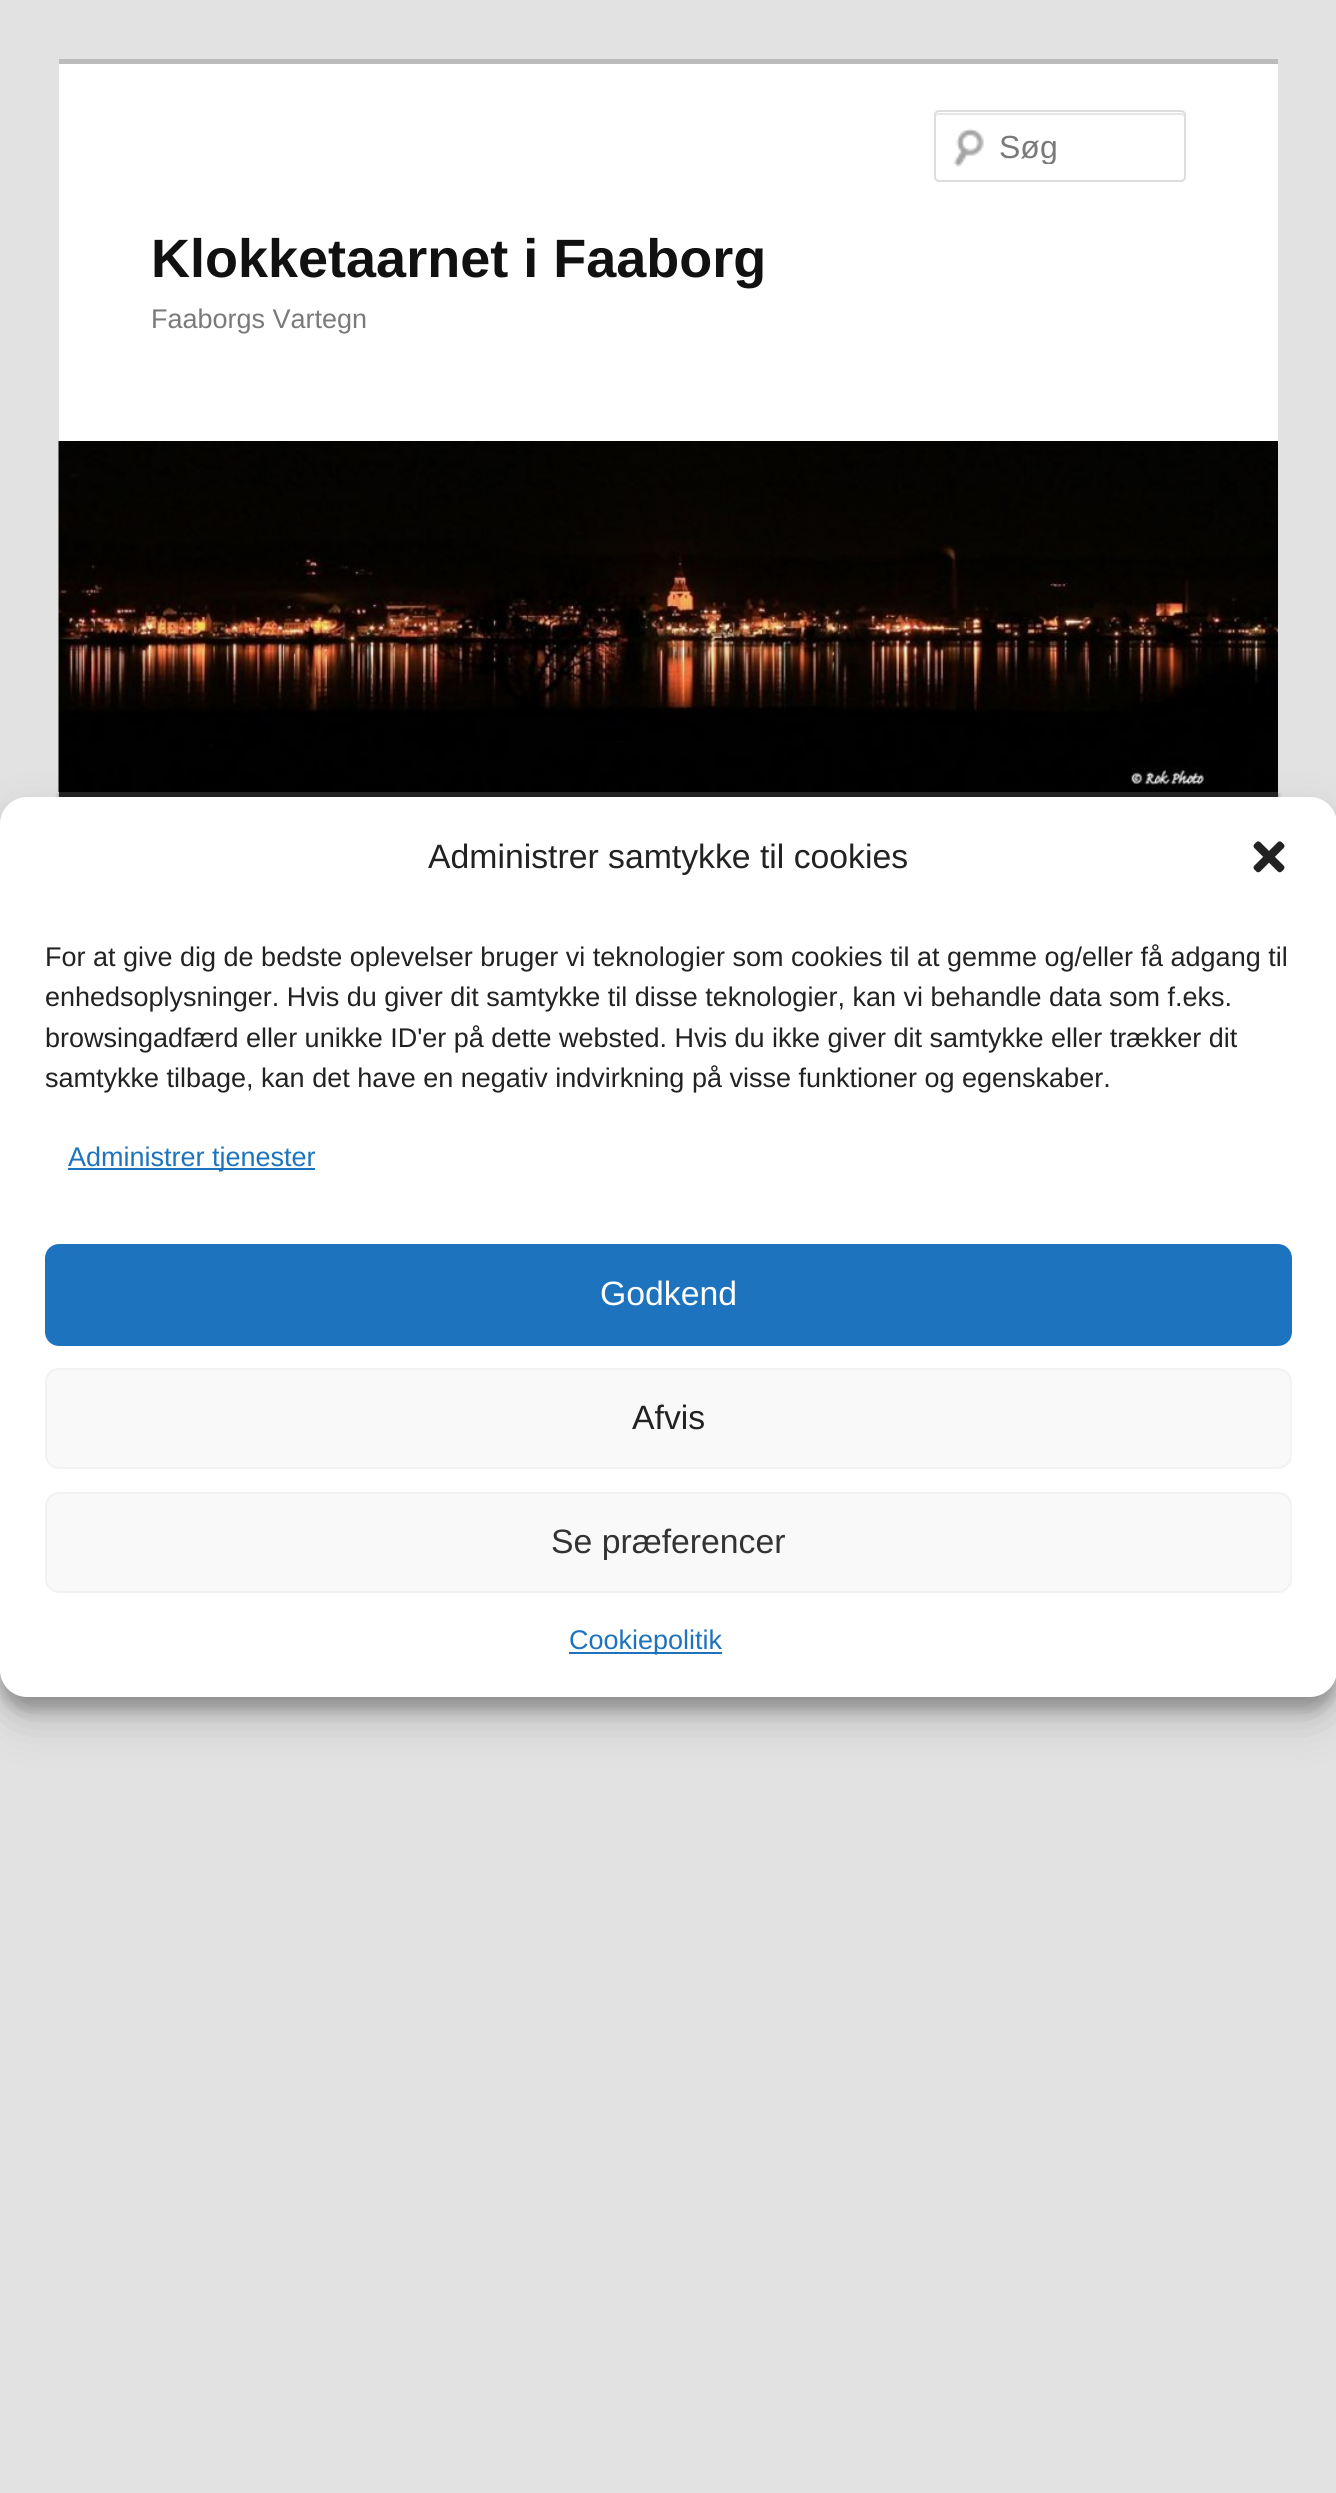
import math
import cairocffi as cairo

surface = cairo.ImageSurface(cairo.FORMAT_RGB24, 1336, 2493)
cr = cairo.Context(surface)
options = cairo.FontOptions()
options.set_hint_metrics(cairo.HINT_METRICS_OFF)
options.set_hint_style(cairo.HINT_STYLE_NONE)
cr.set_font_options(options)
cr.set_miter_limit(4)


def use_color(code):
    cr.set_source_rgb(*(v / 255 for v in bytes.fromhex(code[-6:])))


def round_rect(x, y, w, h, r):
    cr.new_sub_path()
    for i, (u, v) in enumerate([(x + w - r, y + h - r), (x + r, y + h - r), (x + r, y + r), (x + w - r, y + r)]):
        cr.arc(u, v, r, i * math.pi / 2, (i + 1) * math.pi / 2)
    cr.close_path()


def shadow(x, y, w, h, r, blur, alpha):
    cr.push_group_with_content(cairo.CONTENT_ALPHA)
    cr.set_operator(cairo.OPERATOR_SOURCE)
    for i in range(15, -16, -2):
        e = blur * i / 6
        if min(w, h) + 2 * e > 0:
            cr.set_source_rgba(0, 0, 0, alpha * math.erfc((i - 1) / 8.5) / 2)
            round_rect(x - e, y - e, w + 2 * e, h + 2 * e, max(0, min(r + e + blur * .6, min(w, h) / 2 + e)))
            cr.fill()
    cr.mask(cr.pop_group())


def picture(path, x, y, w, h):
    cr.save()
    cr.set_source_surface(cairo.ImageSurface.create_from_png(path), x, y)
    cr.rectangle(x, y, w, h)
    cr.fill()
    cr.restore()


use_color("#e2e2e2")
cr.paint()
use_color("#ffffff")
cr.rectangle(59, 64, 1219, 377)
cr.fill()
use_color("#bbbbbb")
cr.rectangle(59, 59, 1219, 5)
cr.fill()
picture("img1.png", 953, 128, 31, 39)
use_color("#e6e6e6")
cr.new_path()
cr.move_to(938, 115)
cr.line_to(1181, 115)
cr.curve_to(1182, 115, 1184, 116, 1184, 117)
cr.curve_to(1184, 115, 1184, 113, 1182, 113)
cr.line_to(938, 113)
cr.curve_to(936, 113, 936, 115, 936, 117)
cr.curve_to(936, 116, 937, 115, 938, 115)
cr.close_path()
cr.fill()
round_rect(935, 111, 250, 70, 4)
use_color("#dddddd")
cr.stroke()
cr.save()
cr.rectangle(999, 128, 162, 36)
cr.clip()
cr.select_font_face("Liberation Sans")
cr.set_font_size(32)
use_color("#7a7a7a")
cr.move_to(999, 158)
cr.show_text("Søg")
cr.restore()
cr.select_font_face("Liberation Sans", cairo.FONT_SLANT_NORMAL, cairo.FONT_WEIGHT_BOLD)
cr.set_font_size(54)
use_color("#111111")
cr.move_to(151, 277)
cr.show_text("Klokketaarnet i Faaborg")
cr.select_font_face("Liberation Sans")
cr.set_font_size(27)
use_color("#7a7a7a")
cr.move_to(151, 328)
cr.show_text("Faaborgs Vartegn")
use_color("#000000")
shadow(59, 794, 1219, 180, 0, 2, 0.4)
picture("img2.png", 58, 441, 1220, 351)
gradient = cairo.LinearGradient(668, 792, 668, 972)
gradient.add_color_stop_rgba(0, 0.145, 0.145, 0.145, 1)
gradient.add_color_stop_rgba(1, 0.039, 0.039, 0.039, 1)
cr.set_source(gradient)
cr.rectangle(59, 792, 1219, 5)
cr.fill()
use_color("#000000")
shadow(0, 810, 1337, 900, 27, 7, 0.23)
shadow(0, 819, 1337, 900, 27, 22.5, 0.19)
use_color("#ffffff")
round_rect(0, 797, 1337, 900, 27)
cr.fill()
cr.set_font_size(33.75)
use_color("#222222")
cr.move_to(428, 868)
cr.show_text("Administrer samtykke til cookies")
picture("img3.png", 1253, 841, 32, 32)
cr.set_font_size(27)
cr.move_to(45, 966)
cr.show_text("For at give dig de bedste oplevelser bruger vi teknologier som cookies til at gemme og/eller få adgang til")
cr.move_to(45, 1006)
cr.show_text("enhedsoplysninger. Hvis du giver dit samtykke til disse teknologier, kan vi behandle data som f.eks.")
cr.move_to(45, 1047)
cr.show_text("browsingadfærd eller unikke ID'er på dette websted. Hvis du ikke giver dit samtykke eller trækker dit")
cr.move_to(45, 1087)
cr.show_text("samtykke tilbage, kan det have en negativ indvirkning på visse funktioner og egenskaber.")
use_color("#1e73be")
cr.rectangle(68, 1168, 247, 2)
cr.fill()
cr.move_to(68, 1166)
cr.show_text("Administrer tjenester")
round_rect(46, 1245, 1245, 100, 13)
cr.fill_preserve()
cr.stroke()
cr.set_font_size(33.75)
use_color("#ffffff")
cr.move_to(600, 1305)
cr.show_text("Godkend")
use_color("#f9f9f9")
round_rect(46, 1369, 1245, 99, 13)
cr.fill_preserve()
use_color("#f2f2f2")
cr.stroke()
use_color("#222222")
cr.move_to(632, 1429)
cr.show_text("Afvis")
use_color("#f9f9f9")
round_rect(46, 1493, 1245, 99, 13)
cr.fill_preserve()
use_color("#f2f2f2")
cr.stroke()
use_color("#333333")
cr.move_to(551, 1553)
cr.show_text("Se præferencer")
use_color("#1e73be")
cr.rectangle(569, 1652, 153, 2)
cr.fill()
cr.set_font_size(27)
cr.move_to(569, 1649)
cr.show_text("Cookiepolitik")
surface.write_to_png("result.png")
